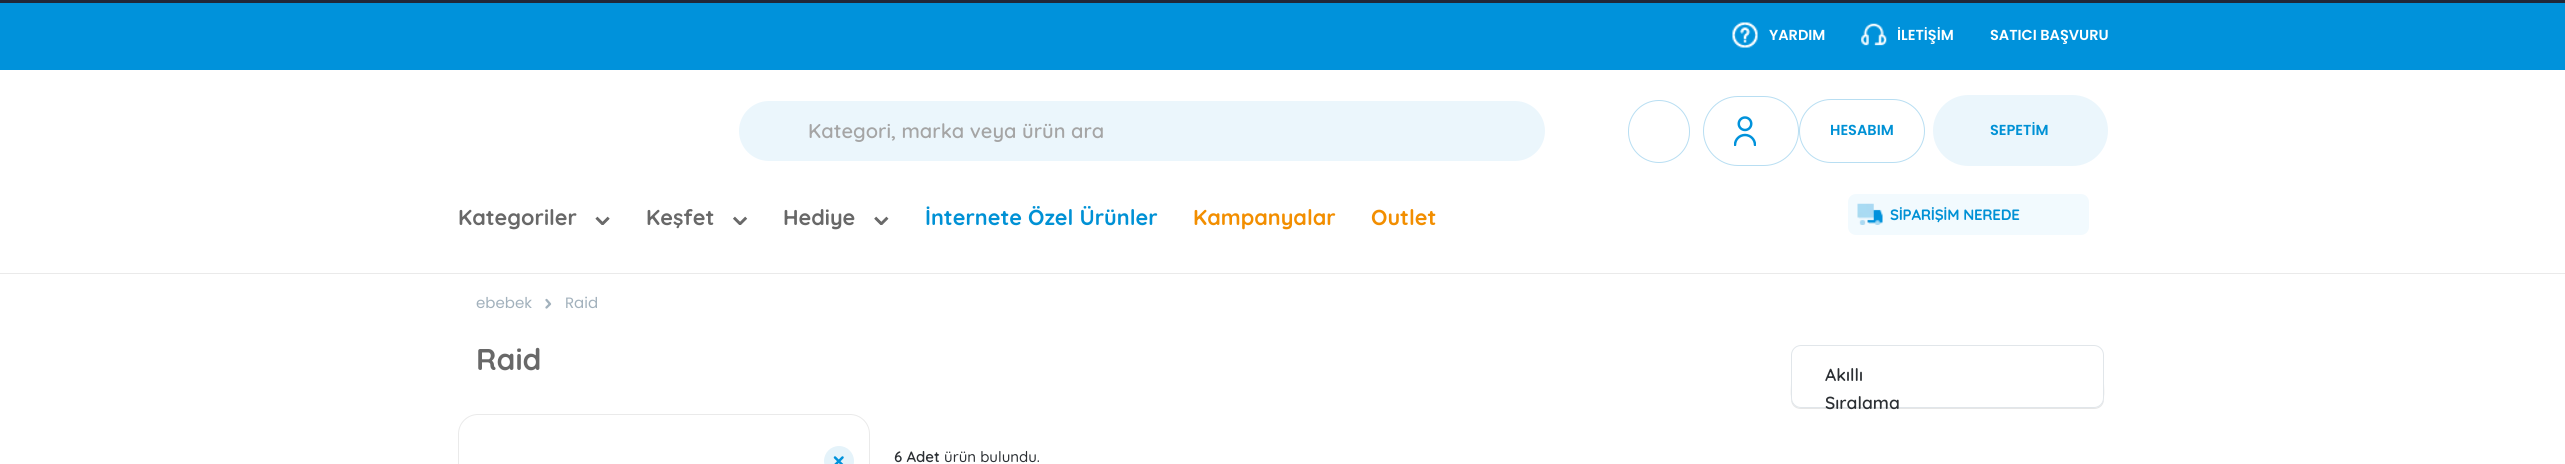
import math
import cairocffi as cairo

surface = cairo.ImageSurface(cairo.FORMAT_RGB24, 2565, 464)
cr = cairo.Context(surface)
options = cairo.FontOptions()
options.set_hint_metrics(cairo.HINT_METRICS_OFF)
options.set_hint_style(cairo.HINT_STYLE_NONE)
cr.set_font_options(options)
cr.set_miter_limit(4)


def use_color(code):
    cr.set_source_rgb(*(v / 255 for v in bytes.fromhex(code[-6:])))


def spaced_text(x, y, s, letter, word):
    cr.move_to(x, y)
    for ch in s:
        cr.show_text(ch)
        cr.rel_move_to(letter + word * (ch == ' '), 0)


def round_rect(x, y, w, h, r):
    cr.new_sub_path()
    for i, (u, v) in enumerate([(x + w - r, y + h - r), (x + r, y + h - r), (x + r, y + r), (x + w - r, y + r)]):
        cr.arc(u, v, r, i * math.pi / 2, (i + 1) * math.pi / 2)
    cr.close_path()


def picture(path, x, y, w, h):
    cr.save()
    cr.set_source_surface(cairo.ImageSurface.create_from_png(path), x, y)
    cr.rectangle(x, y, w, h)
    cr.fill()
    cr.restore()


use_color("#ffffff")
cr.paint()
use_color("#212738")
cr.rectangle(0, 0, 2565, 3)
cr.fill()
use_color("#0092db")
cr.rectangle(0, 3, 2565, 67)
cr.fill()
picture("img1.png", 1732, 22, 26, 26)
cr.select_font_face("Poppins SemiBold")
cr.set_font_size(14.5)
use_color("#ffffff")
cr.move_to(1769, 40)
cr.show_text("YARDIM")
picture("img2.png", 1861, 23, 26, 23)
cr.move_to(1897, 40)
cr.show_text("İLETİŞİM")
cr.move_to(1990, 40)
cr.show_text("SATICI BAŞVURU")
use_color("#ebf6fc")
round_rect(739, 101, 806, 60, 30)
cr.fill()
cr.select_font_face("Quicksand SemiBold")
cr.set_font_size(20)
use_color("#a5a5a5")
cr.move_to(808, 138)
cr.show_text("Kategori, marka veya ürün ara")
round_rect(1628.5, 100.5, 61, 62, 30.5)
use_color("#b8def2")
cr.set_line_width(1)
cr.stroke()
round_rect(1703.5, 96.5, 95, 69, 34.5)
cr.stroke()
picture("img3.png", 1734, 116, 22, 30)
round_rect(1799.5, 99.5, 125, 63, 31.5)
cr.stroke()
cr.select_font_face("Poppins SemiBold")
cr.set_font_size(14.5)
use_color("#0091d5")
cr.move_to(1830, 135)
cr.show_text("HESABIM")
use_color("#ebf6fc")
round_rect(1933, 95, 175, 71, 35.5)
cr.fill()
use_color("#0091d5")
cr.move_to(1990, 135)
cr.show_text("SEPETİM")
cr.select_font_face("Quicksand", cairo.FONT_SLANT_NORMAL, cairo.FONT_WEIGHT_BOLD)
cr.set_font_size(21.6)
use_color("#686868")
cr.move_to(458, 225)
cr.show_text("Kategoriler")
picture("img4.png", 595, 216, 15, 9)
cr.move_to(646, 225)
cr.show_text("Keşfet")
picture("img5.png", 733, 216, 15, 9)
cr.move_to(783, 225)
cr.show_text("Hediye")
picture("img6.png", 874, 216, 15, 9)
use_color("#0091d5")
cr.move_to(925, 225)
cr.show_text("İnternete Özel Ürünler")
use_color("#f28e00")
cr.move_to(1193, 225)
cr.show_text("Kampanyalar")
cr.move_to(1371, 225)
cr.show_text("Outlet")
use_color("#f2fafe")
round_rect(1848, 194, 241, 41, 8)
cr.fill()
picture("img7.png", 1857, 203, 26, 22)
cr.set_font_size(15)
use_color("#0091d5")
spaced_text(1890, 220, "SİPARİŞİM NEREDE", -0.25, 0)
use_color("#eaeaea")
cr.rectangle(0, 273, 2565, 1)
cr.fill()
cr.select_font_face("Poppins")
use_color("#a2b1bc")
cr.move_to(476, 308)
cr.show_text("ebebek")
cr.new_path()
cr.move_to(546.5, 300)
cr.line_to(550, 304)
cr.line_to(546.5, 307.5)
cr.set_line_width(2.3)
cr.set_line_cap(cairo.LINE_CAP_ROUND)
cr.set_line_join(cairo.LINE_JOIN_ROUND)
cr.stroke()
cr.move_to(565, 308)
cr.show_text("Raid")
cr.select_font_face("Quicksand", cairo.FONT_SLANT_NORMAL, cairo.FONT_WEIGHT_BOLD)
cr.set_font_size(30)
use_color("#686868")
cr.move_to(476, 370)
cr.show_text("Raid")
round_rect(458.5, 414.5, 411, 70, 19.5)
use_color("#eaeaea")
cr.set_line_width(1)
cr.set_line_cap(cairo.LINE_CAP_BUTT)
cr.set_line_join(cairo.LINE_JOIN_MITER)
cr.stroke()
use_color("#e5f3fa")
cr.arc(839, 461, 15, 0, 2 * math.pi)
cr.fill()
cr.new_path()
cr.move_to(842.5, 457.5)
cr.line_to(835, 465)
cr.move_to(835, 457.5)
cr.line_to(842.5, 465)
use_color("#0092db")
cr.set_line_width(2.5)
cr.set_line_cap(cairo.LINE_CAP_ROUND)
cr.set_line_join(cairo.LINE_JOIN_ROUND)
cr.stroke()
use_color("#e6e6e6")
cr.new_path()
cr.move_to(1791, 353)
cr.line_to(1791, 356)
cr.line_to(1791, 399)
cr.curve_to(1791, 405, 1795, 409, 1801, 409)
cr.line_to(2094, 409)
cr.curve_to(2100, 409, 2104, 405, 2104, 399)
cr.line_to(2104, 356)
cr.line_to(2104, 353)
cr.line_to(2104, 383)
cr.curve_to(2104, 391, 2107, 407, 2094, 408)
cr.line_to(1801, 408)
cr.curve_to(1788, 407, 1791, 391, 1791, 383)
cr.close_path()
cr.fill()
use_color("#ffffff")
round_rect(1791.5, 345.5, 312, 62, 9.5)
cr.fill_preserve()
use_color("#e1e6ea")
cr.set_line_width(1)
cr.set_line_cap(cairo.LINE_CAP_BUTT)
cr.set_line_join(cairo.LINE_JOIN_MITER)
cr.stroke()
cr.select_font_face("Quicksand SemiBold")
cr.set_font_size(17.5)
use_color("#2b2f33")
cr.move_to(1825, 381)
cr.show_text("Akıllı")
cr.move_to(1825, 409)
cr.show_text("Sıralama")
cr.set_font_size(15)
cr.move_to(894, 462)
cr.show_text("6 Adet")
cr.select_font_face("Quicksand Medium")
cr.move_to(944, 462)
cr.show_text("ürün bulundu.")
surface.write_to_png("result.png")
